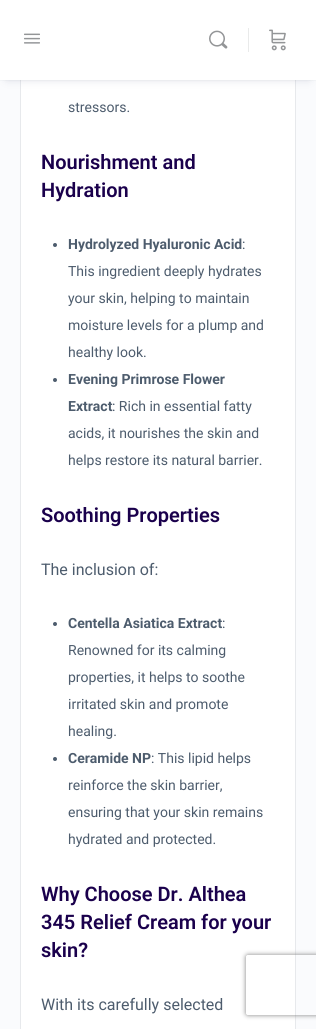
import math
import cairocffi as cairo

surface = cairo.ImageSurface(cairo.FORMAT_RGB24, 316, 1029)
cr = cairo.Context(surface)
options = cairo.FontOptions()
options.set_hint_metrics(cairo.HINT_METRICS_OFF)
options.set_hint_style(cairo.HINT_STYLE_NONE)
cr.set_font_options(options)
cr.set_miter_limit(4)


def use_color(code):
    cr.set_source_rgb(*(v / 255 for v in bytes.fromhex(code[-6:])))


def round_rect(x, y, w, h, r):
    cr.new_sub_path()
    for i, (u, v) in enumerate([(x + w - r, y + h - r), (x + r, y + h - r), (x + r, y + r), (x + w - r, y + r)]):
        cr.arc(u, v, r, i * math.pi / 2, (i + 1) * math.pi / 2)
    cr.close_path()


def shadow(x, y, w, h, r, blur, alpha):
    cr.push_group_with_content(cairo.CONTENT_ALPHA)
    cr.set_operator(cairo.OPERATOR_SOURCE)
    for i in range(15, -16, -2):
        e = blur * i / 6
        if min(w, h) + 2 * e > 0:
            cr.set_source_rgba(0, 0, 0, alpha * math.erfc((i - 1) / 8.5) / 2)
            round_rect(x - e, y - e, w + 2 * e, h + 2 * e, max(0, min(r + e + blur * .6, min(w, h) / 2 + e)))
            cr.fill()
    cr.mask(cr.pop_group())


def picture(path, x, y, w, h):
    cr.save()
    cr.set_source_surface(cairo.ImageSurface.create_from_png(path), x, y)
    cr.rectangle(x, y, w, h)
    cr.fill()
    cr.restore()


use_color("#fafbfd")
cr.paint()
use_color("#ffffff")
cr.rectangle(21, 80, 274, 949)
cr.fill()
cr.rectangle(20.5, -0.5, 275, 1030)
use_color("#e7e9ec")
cr.set_line_width(1)
cr.stroke()
use_color("#41476c")
shadow(7, 12, 302, 66, 0, 5, 0.25)
cr.set_source_rgba(0.545, 0.553, 0.616, 0.05)
cr.rectangle(0, 80, 316, 1)
cr.fill()
use_color("#ffffff")
cr.rectangle(0, 0, 316, 80)
cr.fill()
picture("img1.png", 24, 33, 16, 11)
picture("img2.png", 209, 30, 19, 19)
use_color("#e9eaea")
cr.rectangle(248, 28, 1, 24)
cr.fill()
picture("img3.png", 269, 29, 17, 22)
cr.select_font_face("Roboto")
cr.set_font_size(14)
use_color("#4d5c6d")
cr.move_to(68, 112)
cr.show_text("stressors.")
cr.select_font_face("Roboto SemiBold")
cr.set_font_size(20)
use_color("#1a004c")
cr.move_to(41, 169)
cr.show_text("Nourishment and")
cr.move_to(41, 197)
cr.show_text("Hydration")
use_color("#4d5c6d")
cr.new_path()
cr.arc(55, 245, 2, 0, 2 * math.pi)
cr.fill()
cr.select_font_face("Roboto", cairo.FONT_SLANT_NORMAL, cairo.FONT_WEIGHT_BOLD)
cr.set_font_size(14)
cr.move_to(68, 249)
cr.show_text("Hydrolyzed Hyaluronic Acid")
cr.select_font_face("Roboto")
cr.move_to(242, 249)
cr.show_text(":")
cr.move_to(68, 276)
cr.show_text("This ingredient deeply hydrates")
cr.move_to(68, 303)
cr.show_text("your skin, helping to maintain")
cr.move_to(68, 330)
cr.show_text("moisture levels for a plump and")
cr.move_to(68, 357)
cr.show_text("healthy look.")
cr.new_path()
cr.arc(55, 380, 2, 0, 2 * math.pi)
cr.fill()
cr.select_font_face("Roboto", cairo.FONT_SLANT_NORMAL, cairo.FONT_WEIGHT_BOLD)
cr.move_to(68, 384)
cr.show_text("Evening Primrose Flower")
cr.move_to(68, 411)
cr.show_text("Extract")
cr.select_font_face("Roboto")
cr.move_to(112, 411)
cr.show_text(": Rich in essential fatty")
cr.move_to(68, 438)
cr.show_text("acids, it nourishes the skin and")
cr.move_to(68, 465)
cr.show_text("helps restore its natural barrier.")
cr.select_font_face("Roboto SemiBold")
cr.set_font_size(20)
use_color("#1a004c")
cr.move_to(41, 522)
cr.show_text("Soothing Properties")
cr.select_font_face("Roboto")
cr.set_font_size(16)
use_color("#4d5c6d")
cr.move_to(41, 575)
cr.show_text("The inclusion of:")
cr.new_path()
cr.arc(55, 624, 2, 0, 2 * math.pi)
cr.fill()
cr.select_font_face("Roboto", cairo.FONT_SLANT_NORMAL, cairo.FONT_WEIGHT_BOLD)
cr.set_font_size(14)
cr.move_to(68, 628)
cr.show_text("Centella Asiatica Extract")
cr.select_font_face("Roboto")
cr.move_to(222, 628)
cr.show_text(":")
cr.move_to(68, 655)
cr.show_text("Renowned for its calming")
cr.move_to(68, 682)
cr.show_text("properties, it helps to soothe")
cr.move_to(68, 709)
cr.show_text("irritated skin and promote")
cr.move_to(68, 736)
cr.show_text("healing.")
cr.new_path()
cr.arc(55, 759, 2, 0, 2 * math.pi)
cr.fill()
cr.select_font_face("Roboto", cairo.FONT_SLANT_NORMAL, cairo.FONT_WEIGHT_BOLD)
cr.move_to(68, 763)
cr.show_text("Ceramide NP")
cr.select_font_face("Roboto")
cr.move_to(151, 763)
cr.show_text(": This lipid helps")
cr.move_to(68, 790)
cr.show_text("reinforce the skin barrier,")
cr.move_to(68, 817)
cr.show_text("ensuring that your skin remains")
cr.move_to(68, 844)
cr.show_text("hydrated and protected.")
cr.select_font_face("Roboto SemiBold")
cr.set_font_size(20)
use_color("#1a004c")
cr.move_to(41, 901)
cr.show_text("Why Choose Dr. Althea")
cr.move_to(41, 929)
cr.show_text("345 Relief Cream for your")
cr.move_to(41, 957)
cr.show_text("skin?")
cr.select_font_face("Roboto")
cr.set_font_size(16)
use_color("#4d5c6d")
cr.move_to(41, 1010)
cr.show_text("With its carefully selected")
cr.save()
cr.set_fill_rule(cairo.FILL_RULE_EVEN_ODD)
cr.new_path()
cr.move_to(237, 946)
cr.line_to(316, 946)
cr.line_to(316, 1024)
cr.line_to(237, 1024)
cr.close_path()
cr.move_to(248, 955)
cr.line_to(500, 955)
cr.curve_to(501, 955, 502, 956, 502, 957)
cr.line_to(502, 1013)
cr.curve_to(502, 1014, 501, 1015, 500, 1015)
cr.line_to(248, 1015)
cr.curve_to(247, 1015, 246, 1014, 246, 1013)
cr.line_to(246, 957)
cr.curve_to(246, 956, 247, 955, 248, 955)
cr.close_path()
cr.clip()
use_color("#808080")
shadow(246, 955, 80, 60, 2, 2.5, 1)
cr.restore()
surface.write_to_png("result.png")
